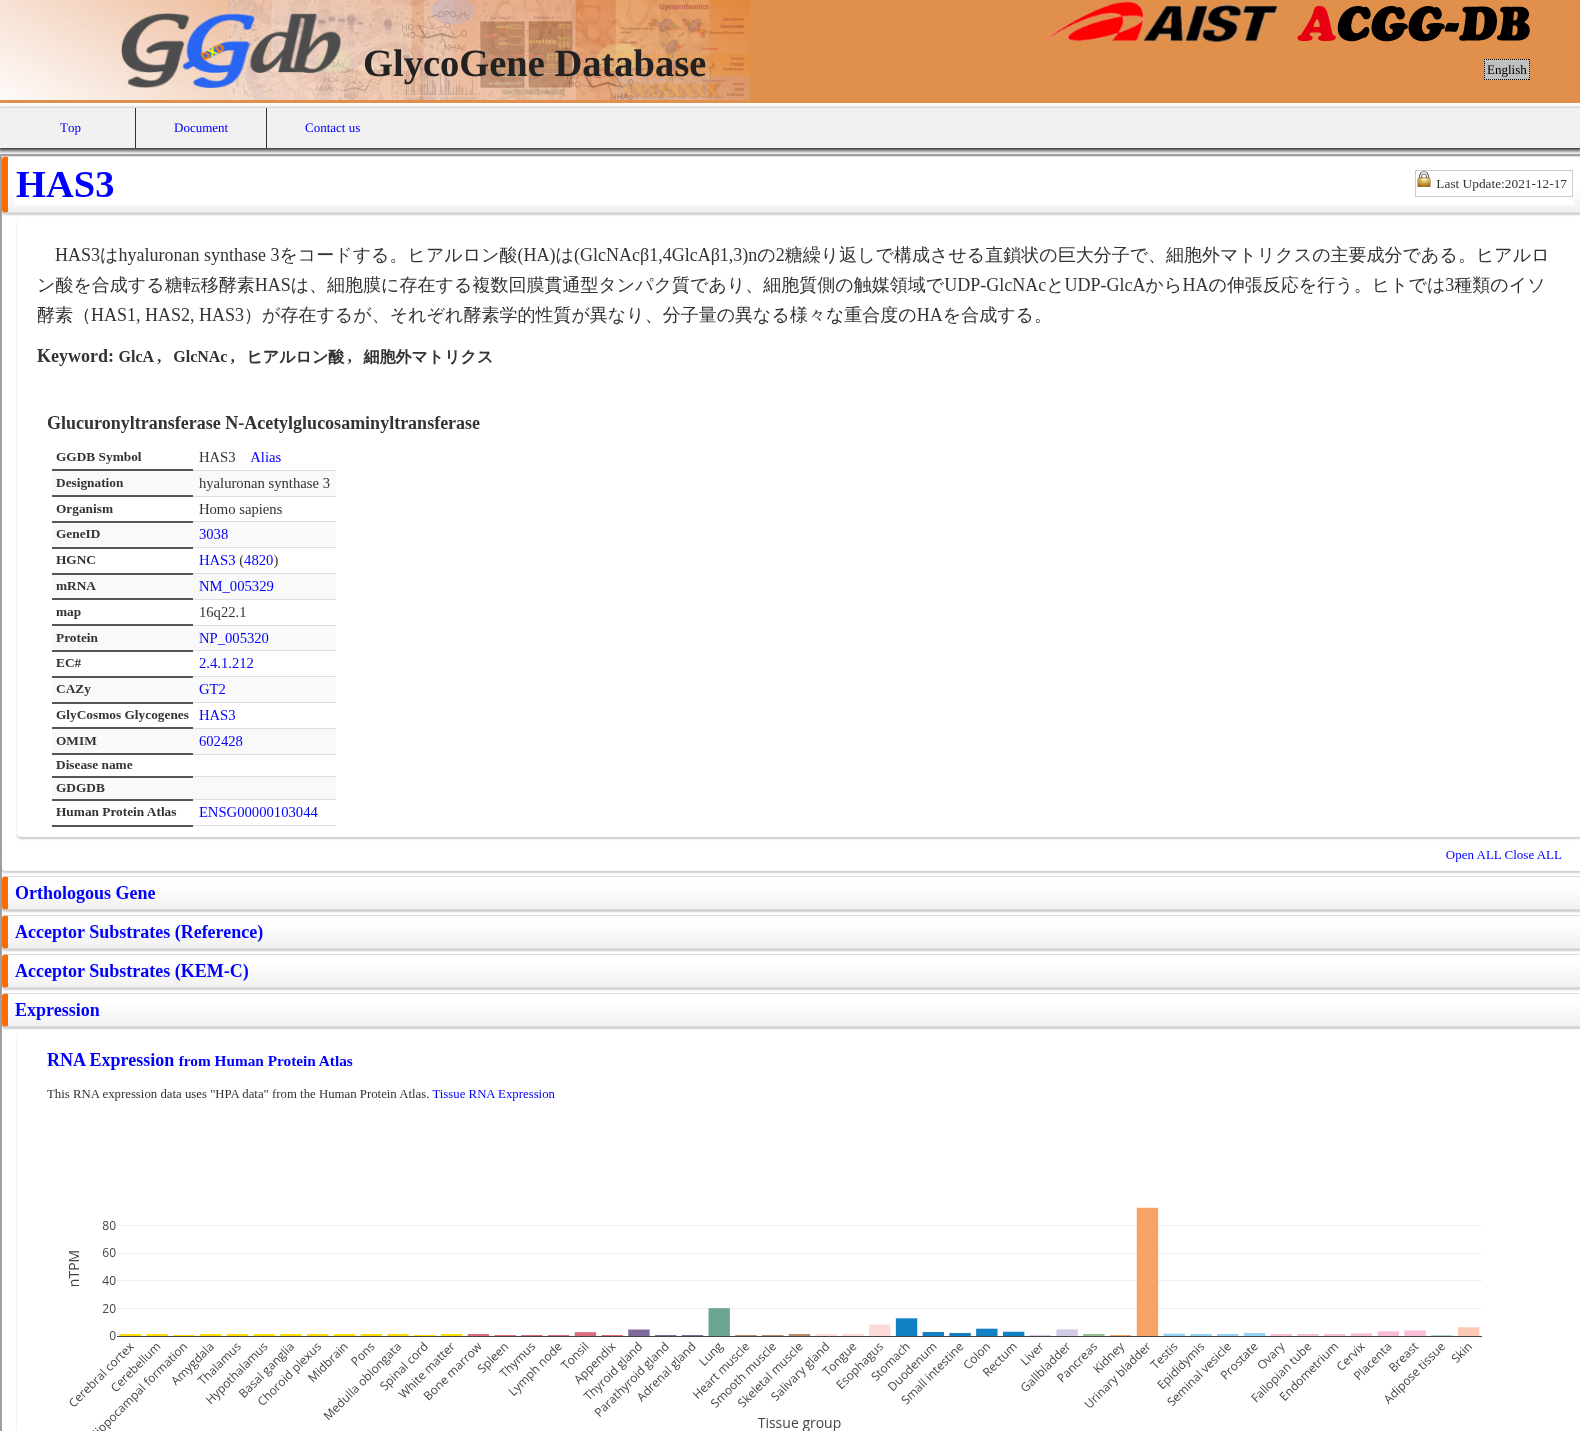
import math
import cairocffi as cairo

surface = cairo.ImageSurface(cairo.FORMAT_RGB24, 1580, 1431)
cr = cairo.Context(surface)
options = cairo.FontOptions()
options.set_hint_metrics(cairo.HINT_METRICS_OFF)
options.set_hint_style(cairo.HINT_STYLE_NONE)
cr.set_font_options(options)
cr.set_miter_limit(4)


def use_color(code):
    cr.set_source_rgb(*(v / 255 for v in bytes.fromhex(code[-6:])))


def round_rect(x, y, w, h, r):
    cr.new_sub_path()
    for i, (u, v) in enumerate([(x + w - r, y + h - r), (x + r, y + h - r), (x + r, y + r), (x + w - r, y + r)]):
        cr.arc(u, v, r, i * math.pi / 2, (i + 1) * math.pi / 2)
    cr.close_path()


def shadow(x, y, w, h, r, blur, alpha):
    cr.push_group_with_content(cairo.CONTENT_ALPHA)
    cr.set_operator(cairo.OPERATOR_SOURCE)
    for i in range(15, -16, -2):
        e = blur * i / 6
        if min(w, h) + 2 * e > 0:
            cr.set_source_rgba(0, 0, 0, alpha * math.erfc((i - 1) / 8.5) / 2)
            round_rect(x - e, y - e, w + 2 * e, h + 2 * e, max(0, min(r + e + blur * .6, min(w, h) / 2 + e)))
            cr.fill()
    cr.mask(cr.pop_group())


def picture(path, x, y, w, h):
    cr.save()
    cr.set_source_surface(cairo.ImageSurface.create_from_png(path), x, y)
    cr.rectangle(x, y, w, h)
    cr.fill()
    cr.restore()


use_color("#ffffff")
cr.paint()
use_color("#e0904b")
cr.rectangle(0, 0, 1580, 103)
cr.fill()
picture("img1.png", 0, 0, 750, 100)
picture("img2.png", 1043, 1, 235, 41)
picture("img3.png", 1297, 6, 233, 36)
cr.select_font_face("Liberation Serif", cairo.FONT_SLANT_NORMAL, cairo.FONT_WEIGHT_BOLD)
cr.set_font_size(38.5)
use_color("#222222")
cr.move_to(363, 76)
cr.show_text("GlycoGene Database")
use_color("#c0c0c0")
cr.rectangle(1484, 59, 46, 21)
cr.fill()
cr.new_path()
cr.move_to(1484, 59.5)
cr.line_to(1530, 59.5)
cr.move_to(1529.5, 59)
cr.line_to(1529.5, 80)
cr.move_to(1484, 79.5)
cr.line_to(1530, 79.5)
cr.move_to(1484.5, 59)
cr.line_to(1484.5, 80)
use_color("#000000")
cr.set_line_width(1)
cr.set_dash([1, 1])
cr.stroke()
cr.select_font_face("Liberation Serif")
cr.set_font_size(13)
cr.move_to(1487, 74)
cr.show_text("English")
use_color("#000000")
shadow(0, 110, 1580, 40, 0, 2.5, 1)
use_color("#f1f1f1")
cr.rectangle(0, 108, 1580, 40)
cr.fill()
use_color("#333333")
cr.rectangle(135, 108, 1, 40)
cr.fill()
use_color("#0000ff")
cr.move_to(60, 132)
cr.show_text("Top")
use_color("#333333")
cr.rectangle(266, 108, 1, 40)
cr.fill()
use_color("#0000ff")
cr.move_to(174, 132)
cr.show_text("Document")
cr.move_to(305, 132)
cr.show_text("Contact us")
use_color("#9f9f9f")
cr.new_path()
cr.move_to(0, 154)
cr.line_to(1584, 154)
cr.line_to(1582, 156)
cr.line_to(2, 156)
cr.close_path()
cr.fill()
cr.new_path()
cr.move_to(0, 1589)
cr.line_to(0, 154)
cr.line_to(2, 156)
cr.line_to(2, 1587)
cr.close_path()
cr.fill()
picture("img4.png", 2, 156, 1578, 1275)
surface.write_to_png("result.png")
